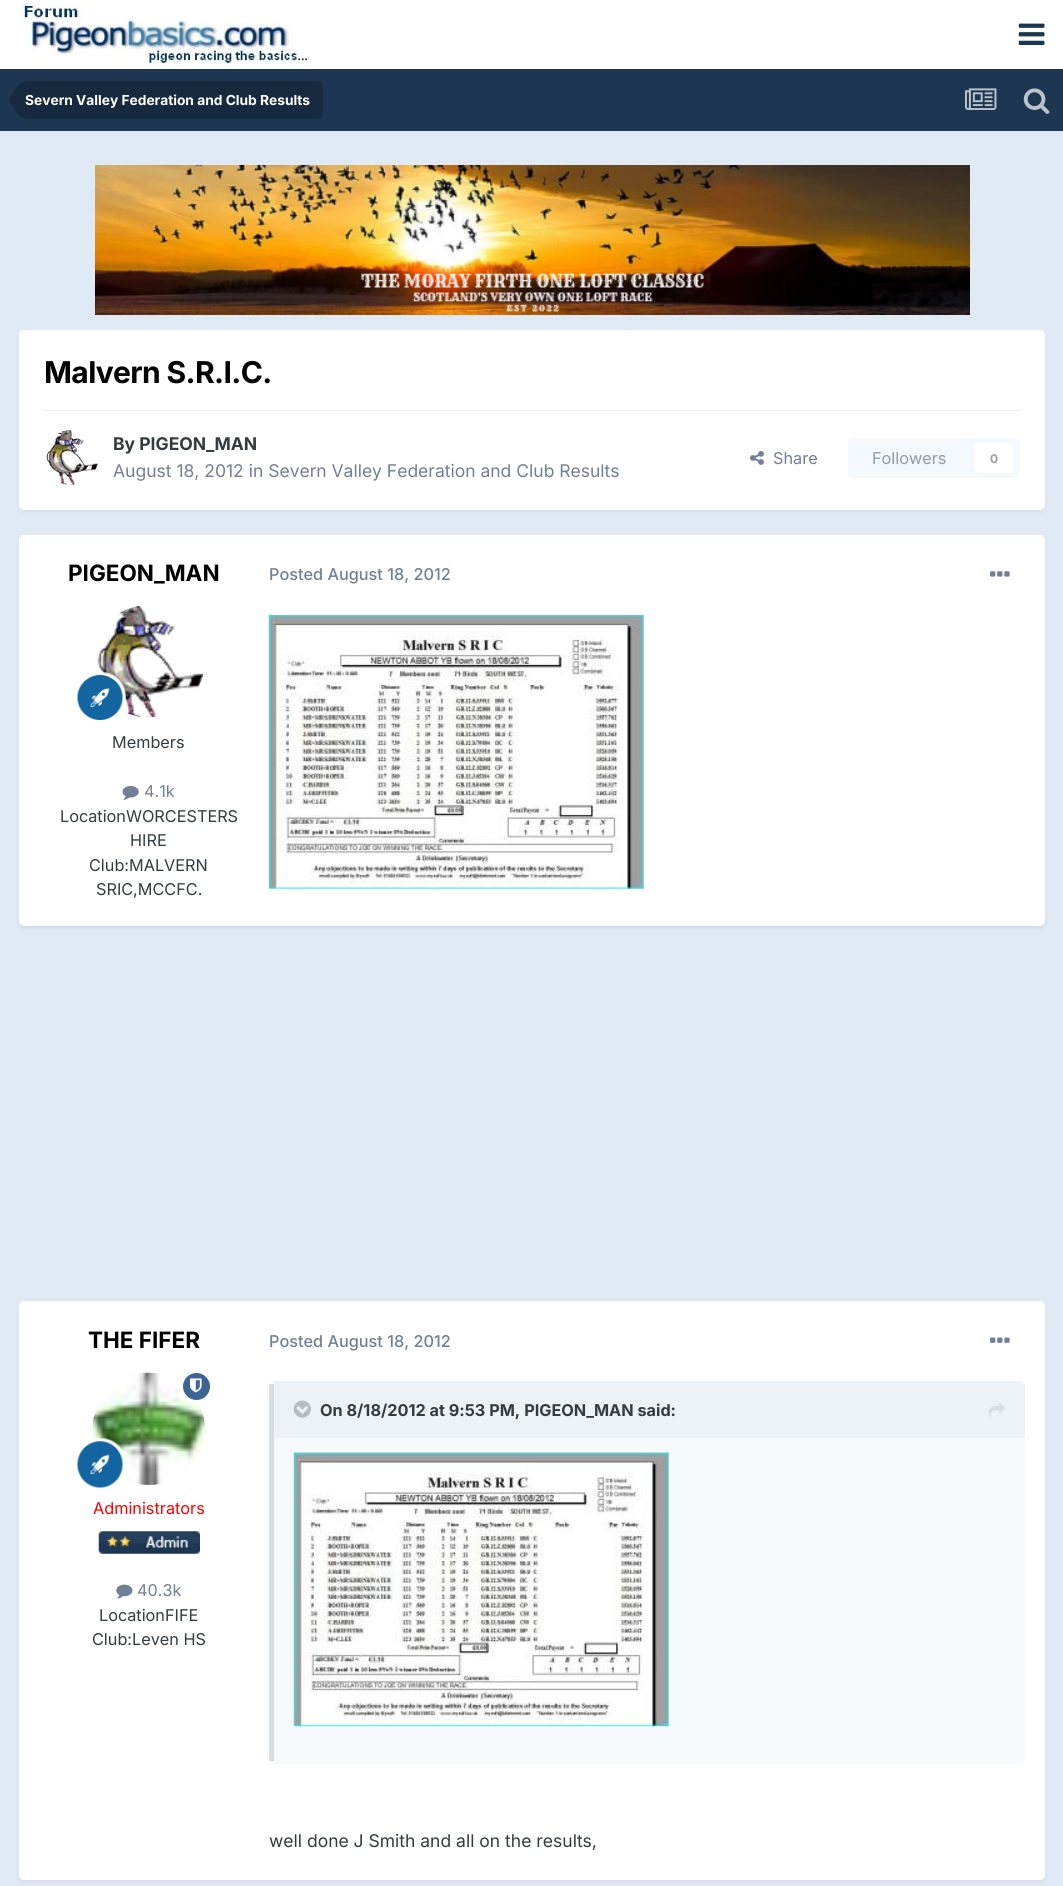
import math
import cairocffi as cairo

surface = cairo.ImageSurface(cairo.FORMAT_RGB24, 1063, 1886)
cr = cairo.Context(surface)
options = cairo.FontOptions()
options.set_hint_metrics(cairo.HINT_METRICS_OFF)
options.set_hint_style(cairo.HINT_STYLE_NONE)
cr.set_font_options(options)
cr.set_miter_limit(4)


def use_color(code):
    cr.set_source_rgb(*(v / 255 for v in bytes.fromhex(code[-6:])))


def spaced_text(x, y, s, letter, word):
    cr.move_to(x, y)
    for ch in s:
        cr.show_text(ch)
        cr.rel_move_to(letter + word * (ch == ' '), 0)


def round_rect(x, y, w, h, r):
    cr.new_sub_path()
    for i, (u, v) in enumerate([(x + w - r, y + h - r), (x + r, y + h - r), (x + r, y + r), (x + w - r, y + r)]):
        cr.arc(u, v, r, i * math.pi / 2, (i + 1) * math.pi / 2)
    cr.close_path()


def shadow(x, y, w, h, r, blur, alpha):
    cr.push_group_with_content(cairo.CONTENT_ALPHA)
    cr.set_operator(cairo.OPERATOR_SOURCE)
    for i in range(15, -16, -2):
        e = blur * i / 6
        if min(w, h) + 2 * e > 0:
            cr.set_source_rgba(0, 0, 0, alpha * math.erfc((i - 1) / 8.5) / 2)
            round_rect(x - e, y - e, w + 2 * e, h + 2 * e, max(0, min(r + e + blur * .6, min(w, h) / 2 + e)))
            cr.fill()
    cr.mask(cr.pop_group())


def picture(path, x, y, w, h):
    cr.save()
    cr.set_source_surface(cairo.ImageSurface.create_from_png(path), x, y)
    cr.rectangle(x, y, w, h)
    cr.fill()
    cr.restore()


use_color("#e0eaf4")
cr.paint()
use_color("#ffffff")
cr.rectangle(0, 0, 1063, 69)
cr.fill()
picture("img1.png", 19, 0, 291, 69)
picture("img2.png", 1018, 23, 27, 22)
use_color("#1d3652")
cr.rectangle(0, 69, 1063, 62)
cr.fill()
use_color("#16293e")
cr.new_path()
cr.move_to(25, 81)
cr.line_to(317, 81)
cr.curve_to(320.5, 81, 323, 83.5, 323, 87)
cr.line_to(323, 113)
cr.curve_to(323, 116.5, 320.5, 119, 317, 119)
cr.line_to(25, 119)
cr.close_path()
cr.fill()
cr.new_path()
cr.move_to(25, 100)
cr.line_to(25, 118.5)
cr.curve_to(19.5, 118.5, 16.5, 112, 14, 108.5)
cr.curve_to(12, 106, 9, 103.5, 9, 100)
cr.close_path()
cr.move_to(25, 100)
cr.line_to(9, 100)
cr.curve_to(9, 96.5, 12, 94, 14, 91.5)
cr.curve_to(16.5, 88, 19.5, 81.5, 25, 81.5)
cr.close_path()
cr.fill()
cr.select_font_face("Inter", cairo.FONT_SLANT_NORMAL, cairo.FONT_WEIGHT_BOLD)
cr.set_font_size(13.75)
use_color("#ffffff")
cr.move_to(25, 105)
cr.show_text("Severn Valley Federation and Club Results")
picture("img3.png", 965, 88, 32, 22)
picture("img4.png", 1023, 88, 27, 26)
picture("img5.png", 95, 165, 875, 150)
use_color("#2d3748")
shadow(20, 334, 1024, 177, 4, 2.5, 0.1)
use_color("#ffffff")
round_rect(19, 330, 1026, 180, 5)
cr.fill()
cr.set_font_size(30)
use_color("#000000")
spaced_text(44, 383, "Malvern S.R.I.C.", -0.6, 0)
use_color("#efeff0")
cr.rectangle(44, 410, 976, 1)
cr.fill()
picture("img6.png", 46, 430, 52, 55)
cr.set_font_size(17.5)
use_color("#353c41")
cr.move_to(113, 450)
cr.show_text("By PIGEON_MAN")
cr.select_font_face("Inter")
use_color("#718096")
cr.move_to(113, 477)
cr.show_text("August 18, 2012 in Severn Valley Federation and Club Results")
picture("img7.png", 750, 451, 14, 14)
cr.set_font_size(16.25)
cr.move_to(773, 464)
cr.show_text("Share")
use_color("#f4f9fd")
round_rect(848, 438, 172, 40, 5)
cr.fill()
use_color("#8e9ba9")
cr.move_to(872, 464)
cr.show_text("Followers")
use_color("#ffffff")
round_rect(974, 443, 40, 30, 5)
cr.fill()
cr.select_font_face("Inter", cairo.FONT_SLANT_NORMAL, cairo.FONT_WEIGHT_BOLD)
cr.set_font_size(12)
use_color("#9a9ea0")
cr.move_to(990, 463)
cr.show_text("0")
use_color("#2d3748")
shadow(20, 539, 1024, 389, 4, 2.5, 0.1)
use_color("#ffffff")
round_rect(19, 535, 1026, 391, 5)
cr.fill()
cr.set_font_size(22.5)
use_color("#000000")
cr.move_to(68, 581)
cr.show_text("PIGEON_MAN")
picture("img8.png", 97, 605, 107, 113)
picture("img9.png", 77, 672, 49, 48)
cr.select_font_face("Inter")
cr.set_font_size(16.25)
use_color("#353c41")
cr.move_to(112, 748)
cr.show_text("Members")
picture("img10.png", 122, 785, 17, 15)
use_color("#718096")
cr.move_to(144, 797)
cr.show_text("4.1k")
use_color("#353c41")
cr.move_to(60, 822)
cr.show_text("LocationWORCESTERS")
cr.move_to(130, 846)
cr.show_text("HIRE")
cr.move_to(89, 871)
cr.show_text("Club:MALVERN")
cr.move_to(96, 895)
cr.show_text("SRIC,MCCFC.")
cr.select_font_face("Inter Medium")
use_color("#718096")
cr.move_to(269, 580)
cr.show_text("Posted August 18, 2012")
picture("img11.png", 990, 571, 20, 6)
picture("img12.png", 268, 615, 376, 274)
use_color("#2d3748")
shadow(20, 1305, 1024, 576, 4, 2.5, 0.1)
use_color("#ffffff")
round_rect(19, 1301, 1026, 579, 5)
cr.fill()
cr.select_font_face("Inter", cairo.FONT_SLANT_NORMAL, cairo.FONT_WEIGHT_BOLD)
cr.set_font_size(22.5)
use_color("#000000")
cr.move_to(88, 1348)
cr.show_text("THE FIFER")
picture("img14.png", 92, 1372, 113, 113)
use_color("#3d6594")
cr.arc(196.5, 1386.5, 15, 0, 2 * math.pi)
cr.fill_preserve()
use_color("#ffffff")
cr.set_line_width(3)
cr.stroke()
picture("img13.png", 190, 1378, 12, 15)
picture("img15.png", 77, 1438, 48, 50)
cr.select_font_face("Inter")
cr.set_font_size(16.25)
use_color("#ff0000")
cr.move_to(93, 1514)
cr.show_text("Administrators")
picture("img16.png", 98, 1531, 102, 23)
picture("img17.png", 116, 1584, 17, 15)
use_color("#718096")
cr.move_to(137, 1596)
cr.show_text("40.3k")
use_color("#353c41")
cr.move_to(99, 1621)
cr.show_text("LocationFIFE")
cr.move_to(92, 1645)
cr.show_text("Club:Leven HS")
cr.select_font_face("Inter Medium")
use_color("#718096")
cr.move_to(269, 1347)
cr.show_text("Posted August 18, 2012")
picture("img18.png", 990, 1337, 20, 6)
use_color("#f7fafc")
round_rect(269, 1381, 756, 383, 5)
cr.fill()
use_color("#d9dde1")
cr.rectangle(269, 1384, 5, 377)
cr.fill()
use_color("#edf2f7")
cr.new_path()
cr.move_to(274, 1381)
cr.line_to(1020, 1381)
cr.curve_to(1023, 1381, 1025, 1383, 1025, 1386)
cr.line_to(1025, 1438)
cr.line_to(274, 1438)
cr.close_path()
cr.fill()
picture("img19.png", 293, 1400, 18, 18)
cr.select_font_face("Inter", cairo.FONT_SLANT_NORMAL, cairo.FONT_WEIGHT_BOLD)
use_color("#353c41")
cr.move_to(320, 1416)
cr.show_text("On 8/18/2012 at 9:53 PM, PIGEON_MAN said:")
picture("img20.png", 988, 1403, 17, 14)
picture("img21.png", 293, 1452, 376, 275)
cr.select_font_face("Inter")
cr.set_font_size(17.5)
cr.move_to(269, 1847)
cr.show_text("well done J Smith and all on the results,")
surface.write_to_png("result.png")
